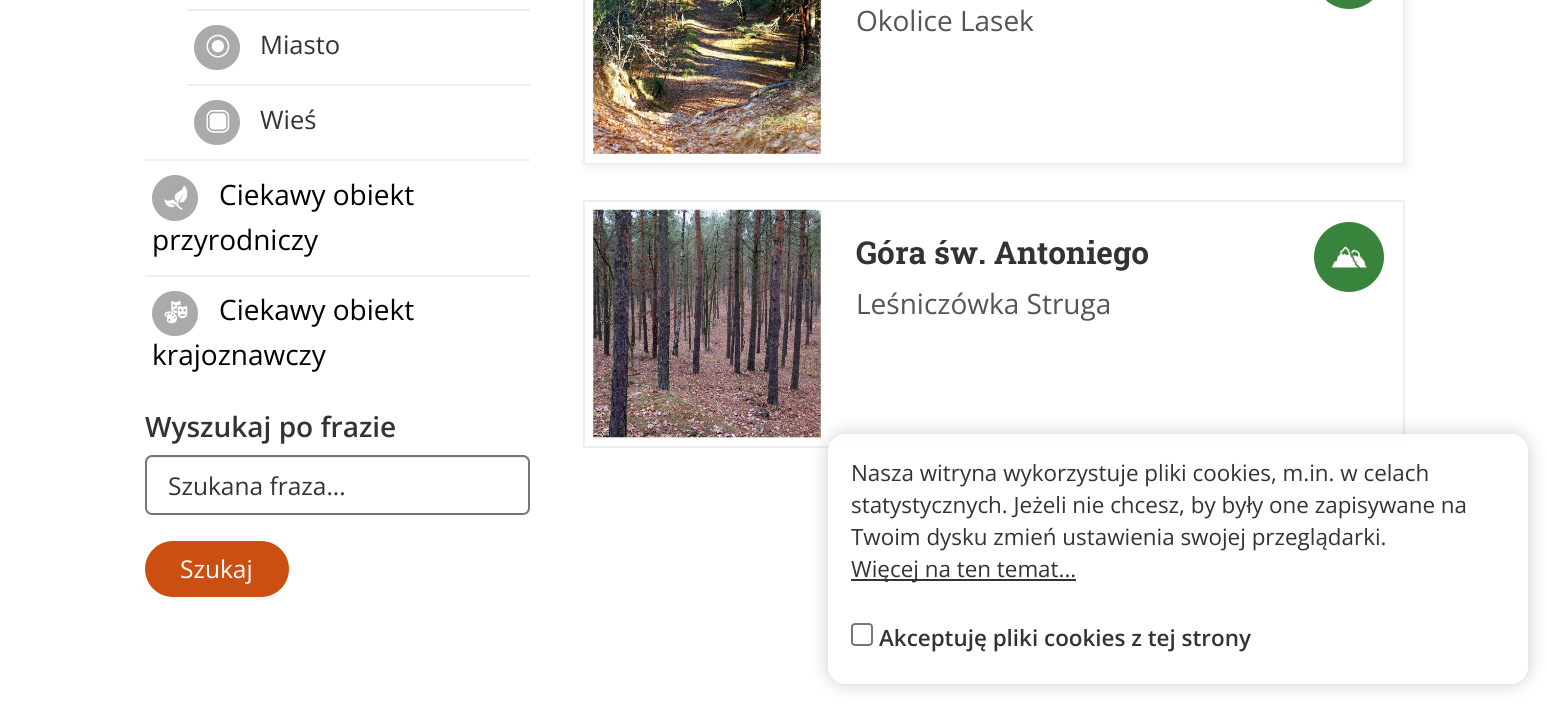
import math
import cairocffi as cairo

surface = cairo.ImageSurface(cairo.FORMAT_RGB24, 1549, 706)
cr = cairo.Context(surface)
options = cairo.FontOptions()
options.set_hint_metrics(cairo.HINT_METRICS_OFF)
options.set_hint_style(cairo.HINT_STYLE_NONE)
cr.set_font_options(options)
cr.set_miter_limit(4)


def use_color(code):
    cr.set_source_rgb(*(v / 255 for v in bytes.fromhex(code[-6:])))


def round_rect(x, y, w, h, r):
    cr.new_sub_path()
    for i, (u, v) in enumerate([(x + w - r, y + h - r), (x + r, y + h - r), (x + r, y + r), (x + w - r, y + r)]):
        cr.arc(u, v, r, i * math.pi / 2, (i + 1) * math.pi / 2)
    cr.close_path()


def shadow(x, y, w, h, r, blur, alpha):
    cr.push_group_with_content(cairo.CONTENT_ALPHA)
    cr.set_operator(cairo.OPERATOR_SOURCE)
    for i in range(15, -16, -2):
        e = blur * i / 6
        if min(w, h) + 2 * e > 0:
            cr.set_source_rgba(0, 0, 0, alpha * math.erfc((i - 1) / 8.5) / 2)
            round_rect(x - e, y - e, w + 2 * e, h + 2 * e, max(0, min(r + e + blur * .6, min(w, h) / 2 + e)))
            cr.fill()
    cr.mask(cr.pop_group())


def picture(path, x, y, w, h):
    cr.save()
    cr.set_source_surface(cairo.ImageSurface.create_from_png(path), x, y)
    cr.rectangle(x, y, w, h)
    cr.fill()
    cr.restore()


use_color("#ffffff")
cr.paint()
use_color("#eeeeee")
cr.rectangle(187, 9, 343, 2)
cr.fill()
use_color("#aaaaaa")
round_rect(194, 25, 46, 45, 22.5)
cr.fill()
picture("img1.png", 206, 34, 24, 24)
cr.select_font_face("Open Sans")
cr.set_font_size(25.5)
use_color("#333333")
cr.move_to(260, 54)
cr.show_text("Miasto")
use_color("#eeeeee")
cr.rectangle(187, 84, 343, 2)
cr.fill()
use_color("#aaaaaa")
round_rect(194, 100, 46, 45, 22.5)
cr.fill()
picture("img2.png", 206, 110, 24, 23)
use_color("#333333")
cr.move_to(260, 129)
cr.show_text("Wieś")
use_color("#eeeeee")
cr.rectangle(145, 159, 385, 2)
cr.fill()
use_color("#aaaaaa")
cr.arc(175, 198, 23, 0, 2 * math.pi)
cr.fill()
picture("img3.png", 164, 185, 24, 25)
cr.set_font_size(28)
use_color("#000000")
cr.move_to(219, 205)
cr.show_text("Ciekawy obiekt")
cr.move_to(152, 250)
cr.show_text("przyrodniczy")
use_color("#eeeeee")
cr.rectangle(145, 275, 385, 2)
cr.fill()
use_color("#aaaaaa")
round_rect(152, 291, 46, 45, 22.5)
cr.fill()
picture("img4.png", 164, 300, 24, 24)
use_color("#000000")
cr.move_to(219, 320)
cr.show_text("Ciekawy obiekt")
cr.move_to(152, 365)
cr.show_text("krajoznawczy")
cr.select_font_face("Open Sans SemiBold")
use_color("#333333")
cr.move_to(145, 437)
cr.show_text("Wyszukaj po frazie")
use_color("#ececec")
cr.new_path()
cr.move_to(152, 458)
cr.line_to(523, 458)
cr.curve_to(526, 458, 528, 461, 528, 464)
cr.line_to(528, 509)
cr.line_to(527, 512)
cr.curve_to(528, 511, 529, 509, 529, 508)
cr.line_to(529, 462)
cr.curve_to(529, 459, 527, 457, 524, 457)
cr.line_to(152, 457)
cr.curve_to(149, 457, 147, 459, 147, 462)
cr.line_to(147, 464)
cr.curve_to(147, 461, 149, 458, 152, 458)
cr.close_path()
cr.fill()
round_rect(146, 456, 383, 58, 6)
use_color("#777777")
cr.stroke()
cr.select_font_face("Open Sans")
cr.set_font_size(24.5)
use_color("#333333")
cr.move_to(168, 495)
cr.show_text("Szukana fraza...")
use_color("#cb4f10")
round_rect(145, 541, 144, 56, 28)
cr.fill()
use_color("#ffffff")
cr.move_to(180, 578)
cr.show_text("Szukaj")
use_color("#000000")
shadow(586, -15, 823, 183, 0, 5, 0.05)
use_color("#ffffff")
cr.rectangle(584, -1, 820, 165)
cr.fill_preserve()
use_color("#eeeeee")
cr.stroke()
cr.rectangle(593, 0, 228, 154)
cr.fill()
picture("img5.png", 593, 0, 228, 154)
use_color("#39843c")
round_rect(1314, -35, 70, 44, 35)
cr.fill()
cr.set_font_size(28)
use_color("#555555")
cr.move_to(856, 31)
cr.show_text("Okolice Lasek")
cr.rectangle(584, 201, 820, 246)
use_color("#eeeeee")
cr.stroke()
cr.rectangle(593, 210, 228, 228)
cr.fill()
picture("img6.png", 593, 209, 228, 229)
cr.select_font_face("Roboto Slab", cairo.FONT_SLANT_NORMAL, cairo.FONT_WEIGHT_BOLD)
cr.set_font_size(31.5)
use_color("#333333")
cr.move_to(856, 264)
cr.show_text("Góra św. Antoniego")
use_color("#39843c")
cr.new_path()
cr.arc(1349, 257, 35, 0, 2 * math.pi)
cr.fill()
picture("img7.png", 1331, 246, 36, 22)
cr.select_font_face("Open Sans")
cr.set_font_size(28)
use_color("#555555")
cr.move_to(856, 314)
cr.show_text("Leśniczówka Struga")
cr.save()
cr.set_fill_rule(cairo.FILL_RULE_EVEN_ODD)
cr.new_path()
cr.move_to(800, 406)
cr.line_to(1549, 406)
cr.line_to(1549, 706)
cr.line_to(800, 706)
cr.close_path()
cr.move_to(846, 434)
cr.line_to(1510, 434)
cr.curve_to(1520, 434, 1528, 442, 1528, 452)
cr.line_to(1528, 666)
cr.curve_to(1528, 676, 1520, 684, 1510, 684)
cr.line_to(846, 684)
cr.curve_to(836, 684, 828, 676, 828, 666)
cr.line_to(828, 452)
cr.curve_to(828, 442, 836, 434, 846, 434)
cr.close_path()
cr.clip()
use_color("#000000")
shadow(828, 434, 700, 250, 18, 9, 0.2)
cr.restore()
cr.set_source_rgba(1, 1, 1, 0.95)
round_rect(828, 434, 700, 250, 18)
cr.fill()
cr.set_font_size(22.4)
use_color("#333333")
cr.move_to(851, 481)
cr.show_text("Nasza witryna wykorzystuje pliki cookies, m.in. w celach")
cr.move_to(851, 513)
cr.show_text("statystycznych. Jeżeli nie chcesz, by były one zapisywane na")
cr.move_to(851, 545)
cr.show_text("Twoim dysku zmień ustawienia swojej przeglądarki.")
cr.rectangle(851, 579, 225, 2)
cr.fill()
cr.move_to(851, 577)
cr.show_text("Więcej na ten temat...")
round_rect(852, 624, 20, 21, 3)
use_color("#767676")
cr.stroke()
cr.select_font_face("Open Sans SemiBold")
use_color("#333333")
cr.move_to(879, 646)
cr.show_text("Akceptuję pliki cookies z tej strony")
surface.write_to_png("result.png")
